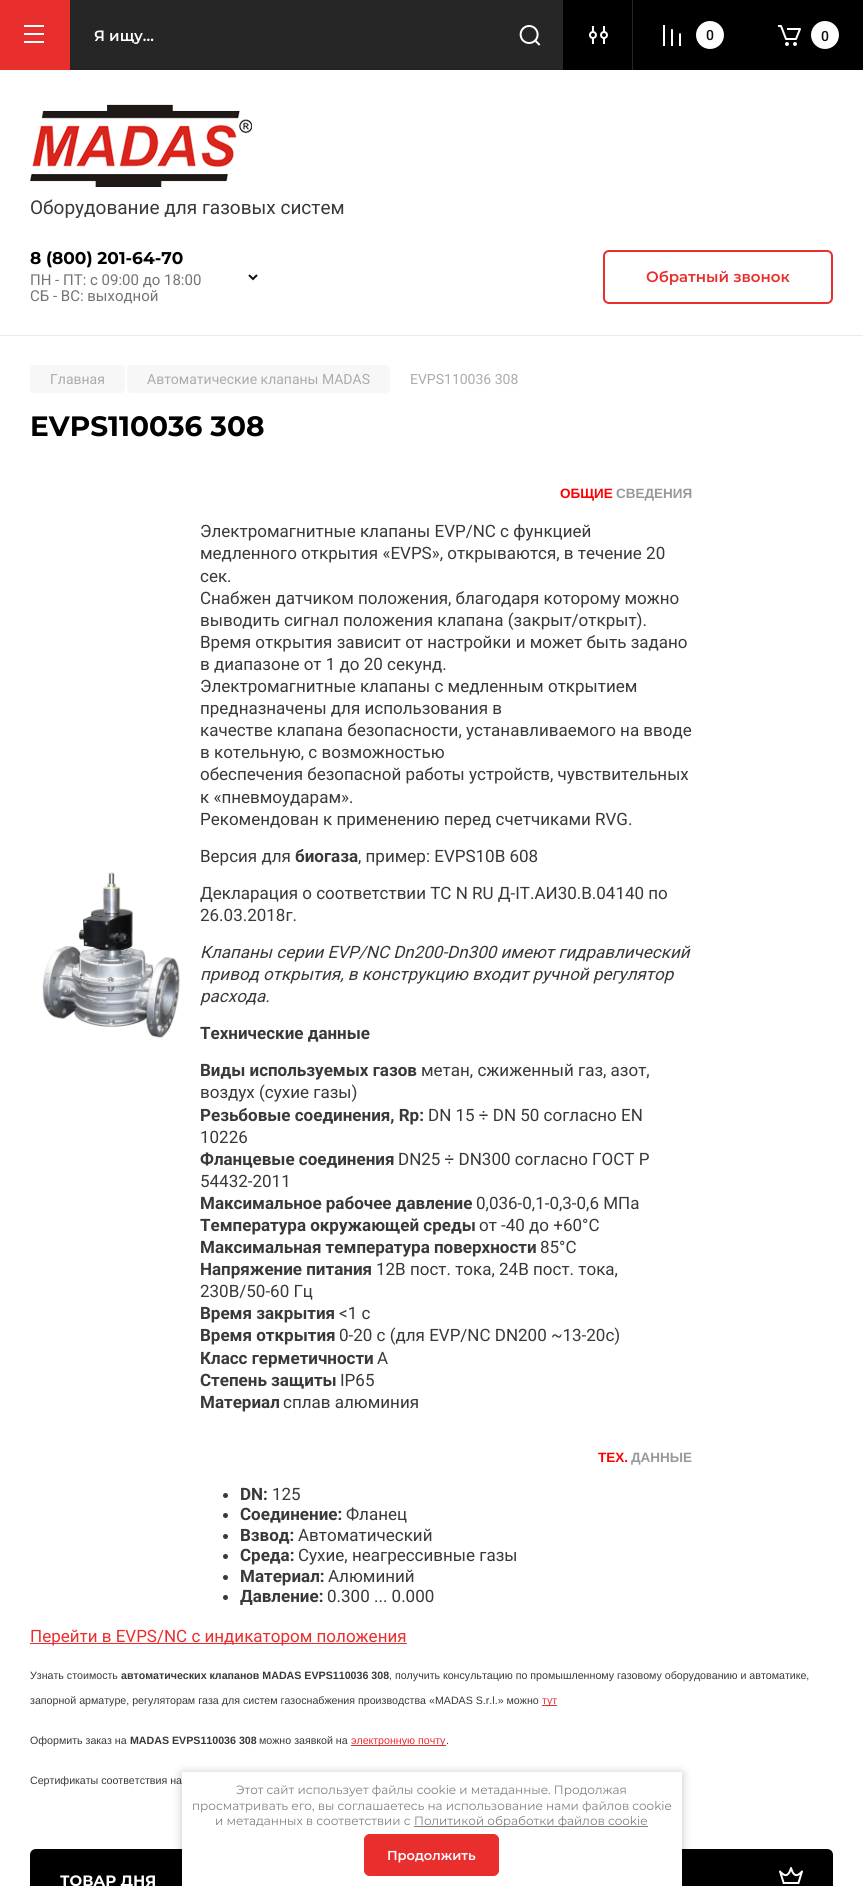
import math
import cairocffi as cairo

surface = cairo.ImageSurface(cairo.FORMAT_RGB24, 863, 1886)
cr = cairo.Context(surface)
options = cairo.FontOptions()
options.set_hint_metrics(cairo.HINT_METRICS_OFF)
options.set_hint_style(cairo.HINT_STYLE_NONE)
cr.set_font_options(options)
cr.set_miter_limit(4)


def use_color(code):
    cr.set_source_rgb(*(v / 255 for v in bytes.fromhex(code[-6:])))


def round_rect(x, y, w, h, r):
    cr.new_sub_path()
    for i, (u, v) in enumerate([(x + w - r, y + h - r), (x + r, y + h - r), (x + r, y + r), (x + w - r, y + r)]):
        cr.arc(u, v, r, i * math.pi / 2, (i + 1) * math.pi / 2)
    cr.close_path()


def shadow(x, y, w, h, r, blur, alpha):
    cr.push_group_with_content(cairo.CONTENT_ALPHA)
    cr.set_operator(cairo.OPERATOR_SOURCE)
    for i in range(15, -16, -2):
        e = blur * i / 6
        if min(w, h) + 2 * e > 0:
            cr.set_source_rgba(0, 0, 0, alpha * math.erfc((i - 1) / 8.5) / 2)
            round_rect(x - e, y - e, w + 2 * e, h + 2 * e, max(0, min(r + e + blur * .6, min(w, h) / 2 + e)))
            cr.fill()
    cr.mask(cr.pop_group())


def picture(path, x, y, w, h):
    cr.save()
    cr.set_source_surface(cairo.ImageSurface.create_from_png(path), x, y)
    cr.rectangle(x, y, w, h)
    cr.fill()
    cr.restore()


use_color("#000000")
cr.paint()
use_color("#ffffff")
cr.rectangle(0, 70, 863, 1816)
cr.fill()
use_color("#e92e2e")
cr.rectangle(0, 0, 70, 70)
cr.fill()
picture("img1.png", 24, 25, 20, 18)
use_color("#262626")
cr.rectangle(70, 0, 493, 70)
cr.fill()
cr.select_font_face("Montserrat SemiBold")
cr.set_font_size(15)
use_color("#ffffff")
cr.move_to(94, 41)
cr.show_text("Я ищу…")
picture("img2.png", 519, 25, 22, 21)
use_color("#262626")
cr.rectangle(632, 0, 1, 70)
cr.fill()
picture("img3.png", 589, 26, 19, 18)
picture("img4.png", 663, 25, 18, 21)
use_color("#ffffff")
cr.arc(710, 35, 14, 0, 2 * math.pi)
cr.fill()
cr.select_font_face("Roboto Medium")
cr.set_font_size(14)
use_color("#101010")
cr.move_to(706, 40)
cr.show_text("0")
picture("img5.png", 778, 25, 23, 21)
use_color("#ffffff")
cr.arc(825, 35, 14, 0, 2 * math.pi)
cr.fill()
use_color("#101010")
cr.move_to(821, 41)
cr.show_text("0")
use_color("#ebebeb")
cr.rectangle(0, 335, 863, 1)
cr.fill()
picture("img6.png", 30, 104, 222, 83)
cr.select_font_face("Roboto")
cr.set_font_size(19)
use_color("#393939")
cr.move_to(30, 214)
cr.show_text("Оборудование для газовых систем")
cr.select_font_face("Montserrat", cairo.FONT_SLANT_NORMAL, cairo.FONT_WEIGHT_BOLD)
cr.set_font_size(17)
use_color("#000000")
cr.move_to(30, 264)
cr.show_text("8 (800) 201-64-70")
cr.select_font_face("Roboto")
cr.set_font_size(15)
use_color("#747474")
cr.move_to(30, 285)
cr.show_text("ПН - ПТ: с 09:00 до 18:00")
cr.move_to(30, 301)
cr.show_text("СБ - ВС: выходной")
picture("img7.png", 248, 274, 10, 7)
round_rect(604, 251, 228, 52, 5)
use_color("#e92e2e")
cr.stroke()
cr.select_font_face("Montserrat SemiBold")
cr.move_to(646, 282)
cr.show_text("Обратный звонок")
use_color("#f7f7f7")
round_rect(30, 365, 95, 28, 4)
cr.fill()
cr.select_font_face("Roboto")
cr.set_font_size(14)
use_color("#ababab")
cr.move_to(50, 384)
cr.show_text("Главная")
use_color("#f7f7f7")
round_rect(127, 365, 263, 28, 4)
cr.fill()
use_color("#ababab")
cr.move_to(147, 384)
cr.show_text("Автоматические клапаны MADAS")
cr.move_to(410, 384)
cr.show_text("EVPS110036 308")
cr.select_font_face("Montserrat", cairo.FONT_SLANT_NORMAL, cairo.FONT_WEIGHT_BOLD)
cr.set_font_size(28)
use_color("#000000")
cr.move_to(30, 436)
cr.show_text("EVPS110036 308")
picture("img8.png", 42, 872, 138, 166)
cr.select_font_face("Liberation Sans", cairo.FONT_SLANT_NORMAL, cairo.FONT_WEIGHT_BOLD)
cr.set_font_size(13.5)
use_color("#ff0000")
cr.move_to(560, 498)
cr.show_text("ОБЩИЕ")
use_color("#999999")
cr.move_to(616, 498)
cr.show_text("СВЕДЕНИЯ")
cr.select_font_face("Roboto")
cr.set_font_size(17)
use_color("#393939")
cr.move_to(200, 537)
cr.show_text("Электромагнитные клапаны EVP/NC с функцией")
cr.move_to(200, 559)
cr.show_text("медленного открытия «EVPS», открываются, в течение 20")
cr.move_to(200, 582)
cr.show_text("сек.")
cr.move_to(200, 604)
cr.show_text("Снабжен датчиком положения, благодаря которому можно")
cr.move_to(200, 626)
cr.show_text("выводить сигнал положения клапана (закрыт/открыт).")
cr.move_to(200, 648)
cr.show_text("Время открытия зависит от настройки и может быть задано")
cr.move_to(200, 670)
cr.show_text("в диапазоне от 1 до 20 секунд.")
cr.move_to(200, 692)
cr.show_text("Электромагнитные клапаны с медленным открытием")
cr.move_to(200, 714)
cr.show_text("предназначены для использования в")
cr.move_to(200, 736)
cr.show_text("качестве клапана безопасности, устанавливаемого на вводе")
cr.move_to(200, 758)
cr.show_text("в котельную, с возможностью")
cr.move_to(200, 780)
cr.show_text("обеспечения безопасной работы устройств, чувствительных")
cr.move_to(200, 803)
cr.show_text("к «пневмоударам».")
cr.move_to(200, 825)
cr.show_text("Рекомендован к применению перед счетчиками RVG.")
cr.move_to(200, 862)
cr.show_text("Версия для")
cr.select_font_face("Roboto", cairo.FONT_SLANT_NORMAL, cairo.FONT_WEIGHT_BOLD)
cr.move_to(295, 862)
cr.show_text("биогаза")
cr.select_font_face("Roboto")
cr.move_to(358, 862)
cr.show_text(", пример: EVPS10B 608")
cr.move_to(200, 899)
cr.show_text("Декларация о соответствии TC N RU Д-IT.АИ30.В.04140 по")
cr.move_to(200, 921)
cr.show_text("26.03.2018г.")
cr.select_font_face("Roboto", cairo.FONT_SLANT_ITALIC)
cr.move_to(200, 958)
cr.show_text("Клапаны серии EVP/NC Dn200-Dn300 имеют гидравлический")
cr.move_to(200, 980)
cr.show_text("привод открытия, в конструкцию входит ручной регулятор")
cr.move_to(200, 1002)
cr.show_text("расхода.")
cr.select_font_face("Roboto", cairo.FONT_SLANT_NORMAL, cairo.FONT_WEIGHT_BOLD)
cr.move_to(200, 1039)
cr.show_text("Технические данные")
cr.move_to(200, 1076)
cr.show_text("Виды используемых газов")
cr.select_font_face("Roboto")
cr.move_to(421, 1076)
cr.show_text("метан, сжиженный газ, азот,")
cr.move_to(200, 1098)
cr.show_text("воздух (сухие газы)")
cr.select_font_face("Roboto", cairo.FONT_SLANT_NORMAL, cairo.FONT_WEIGHT_BOLD)
cr.move_to(200, 1121)
cr.show_text("Резьбовые соединения, Rp:")
cr.select_font_face("Roboto")
cr.move_to(428, 1121)
cr.show_text("DN 15 ÷ DN 50 согласно EN")
cr.move_to(200, 1143)
cr.show_text("10226")
cr.select_font_face("Roboto", cairo.FONT_SLANT_NORMAL, cairo.FONT_WEIGHT_BOLD)
cr.move_to(200, 1165)
cr.show_text("Фланцевые соединения")
cr.select_font_face("Roboto")
cr.move_to(398, 1165)
cr.show_text("DN25 ÷ DN300 согласно ГОСТ Р")
cr.move_to(200, 1187)
cr.show_text("54432-2011")
cr.select_font_face("Roboto", cairo.FONT_SLANT_NORMAL, cairo.FONT_WEIGHT_BOLD)
cr.move_to(200, 1209)
cr.show_text("Максимальное рабочее давление")
cr.select_font_face("Roboto")
cr.move_to(476, 1209)
cr.show_text("0,036-0,1-0,3-0,6 МПа")
cr.select_font_face("Roboto", cairo.FONT_SLANT_NORMAL, cairo.FONT_WEIGHT_BOLD)
cr.move_to(200, 1231)
cr.show_text("Температура окружающей среды")
cr.select_font_face("Roboto")
cr.move_to(479, 1231)
cr.show_text("от -40 до +60°С")
cr.select_font_face("Roboto", cairo.FONT_SLANT_NORMAL, cairo.FONT_WEIGHT_BOLD)
cr.move_to(200, 1253)
cr.show_text("Максимальная температура поверхности")
cr.select_font_face("Roboto")
cr.move_to(540, 1253)
cr.show_text("85°С")
cr.select_font_face("Roboto", cairo.FONT_SLANT_NORMAL, cairo.FONT_WEIGHT_BOLD)
cr.move_to(200, 1275)
cr.show_text("Напряжение питания")
cr.select_font_face("Roboto")
cr.move_to(376, 1275)
cr.show_text("12В пост. тока, 24В пост. тока,")
cr.move_to(200, 1297)
cr.show_text("230В/50-60 Гц")
cr.select_font_face("Roboto", cairo.FONT_SLANT_NORMAL, cairo.FONT_WEIGHT_BOLD)
cr.move_to(200, 1319)
cr.show_text("Время закрытия")
cr.select_font_face("Roboto")
cr.move_to(339, 1319)
cr.show_text("<1 с")
cr.select_font_face("Roboto", cairo.FONT_SLANT_NORMAL, cairo.FONT_WEIGHT_BOLD)
cr.move_to(200, 1341)
cr.show_text("Время открытия")
cr.select_font_face("Roboto")
cr.move_to(339, 1341)
cr.show_text("0-20 c (для EVP/NC DN200 ~13-20c)")
cr.select_font_face("Roboto", cairo.FONT_SLANT_NORMAL, cairo.FONT_WEIGHT_BOLD)
cr.move_to(200, 1364)
cr.show_text("Класс герметичности")
cr.select_font_face("Roboto")
cr.move_to(377, 1364)
cr.show_text("А")
cr.select_font_face("Roboto", cairo.FONT_SLANT_NORMAL, cairo.FONT_WEIGHT_BOLD)
cr.move_to(200, 1386)
cr.show_text("Степень защиты")
cr.select_font_face("Roboto")
cr.move_to(340, 1386)
cr.show_text("IP65")
cr.select_font_face("Roboto", cairo.FONT_SLANT_NORMAL, cairo.FONT_WEIGHT_BOLD)
cr.move_to(200, 1408)
cr.show_text("Материал")
cr.select_font_face("Roboto")
cr.move_to(283, 1408)
cr.show_text("сплав алюминия")
cr.select_font_face("Liberation Sans", cairo.FONT_SLANT_NORMAL, cairo.FONT_WEIGHT_BOLD)
cr.set_font_size(13.5)
use_color("#ff0000")
cr.move_to(598, 1462)
cr.show_text("ТЕХ.")
use_color("#999999")
cr.move_to(631, 1462)
cr.show_text("ДАННЫЕ")
use_color("#393939")
cr.new_path()
cr.arc(225.5, 1495.5, 2.5, 0, 2 * math.pi)
cr.fill()
cr.select_font_face("Roboto", cairo.FONT_SLANT_NORMAL, cairo.FONT_WEIGHT_BOLD)
cr.set_font_size(17)
cr.move_to(240, 1500)
cr.show_text("DN:")
cr.select_font_face("Roboto")
cr.move_to(272, 1500)
cr.show_text("125")
cr.new_path()
cr.arc(225.5, 1515.5, 2.5, 0, 2 * math.pi)
cr.fill()
cr.select_font_face("Roboto", cairo.FONT_SLANT_NORMAL, cairo.FONT_WEIGHT_BOLD)
cr.move_to(240, 1520)
cr.show_text("Соединение:")
cr.select_font_face("Roboto")
cr.move_to(346, 1520)
cr.show_text("Фланец")
cr.new_path()
cr.arc(225.5, 1536.5, 2.5, 0, 2 * math.pi)
cr.fill()
cr.select_font_face("Roboto", cairo.FONT_SLANT_NORMAL, cairo.FONT_WEIGHT_BOLD)
cr.move_to(240, 1541)
cr.show_text("Взвод:")
cr.select_font_face("Roboto")
cr.move_to(298, 1541)
cr.show_text("Автоматический")
cr.new_path()
cr.arc(225.5, 1556.5, 2.5, 0, 2 * math.pi)
cr.fill()
cr.select_font_face("Roboto", cairo.FONT_SLANT_NORMAL, cairo.FONT_WEIGHT_BOLD)
cr.move_to(240, 1561)
cr.show_text("Среда:")
cr.select_font_face("Roboto")
cr.move_to(298, 1561)
cr.show_text("Сухие, неагрессивные газы")
cr.new_path()
cr.arc(225.5, 1577.5, 2.5, 0, 2 * math.pi)
cr.fill()
cr.select_font_face("Roboto", cairo.FONT_SLANT_NORMAL, cairo.FONT_WEIGHT_BOLD)
cr.move_to(240, 1582)
cr.show_text("Материал:")
cr.select_font_face("Roboto")
cr.move_to(328, 1582)
cr.show_text("Алюминий")
cr.new_path()
cr.arc(225.5, 1597.5, 2.5, 0, 2 * math.pi)
cr.fill()
cr.select_font_face("Roboto", cairo.FONT_SLANT_NORMAL, cairo.FONT_WEIGHT_BOLD)
cr.move_to(240, 1602)
cr.show_text("Давление:")
cr.select_font_face("Roboto")
cr.move_to(327, 1602)
cr.show_text("0.300 ... 0.000")
use_color("#e92e2e")
cr.rectangle(30, 1643, 377, 1)
cr.fill()
cr.move_to(30, 1642)
cr.show_text("Перейти в EVPS/NC с индикатором положения")
cr.select_font_face("Liberation Sans")
cr.set_font_size(10.65)
use_color("#393939")
cr.move_to(30, 1679)
cr.show_text("Узнать стоимость")
cr.select_font_face("Liberation Sans", cairo.FONT_SLANT_NORMAL, cairo.FONT_WEIGHT_BOLD)
cr.move_to(121, 1679)
cr.show_text("автоматических клапанов MADAS EVPS110036 308")
cr.select_font_face("Liberation Sans")
cr.move_to(389, 1679)
cr.show_text(", получить консультацию по промышленному газовому оборудованию и автоматике,")
cr.move_to(30, 1704)
cr.show_text("запорной арматуре, регуляторам газа для систем газоснабжения производства «MADAS S.r.l.» можно")
use_color("#e92e2e")
cr.rectangle(542, 1705, 15, 1)
cr.fill()
cr.move_to(542, 1704)
cr.show_text("тут")
use_color("#393939")
cr.move_to(30, 1744)
cr.show_text("Оформить заказ на")
cr.select_font_face("Liberation Sans", cairo.FONT_SLANT_NORMAL, cairo.FONT_WEIGHT_BOLD)
cr.move_to(130, 1744)
cr.show_text("MADAS EVPS110036 308")
cr.select_font_face("Liberation Sans")
cr.move_to(259, 1744)
cr.show_text("можно заявкой на")
use_color("#e92e2e")
cr.rectangle(351, 1745, 95, 1)
cr.fill()
cr.move_to(351, 1744)
cr.show_text("электронную почту")
use_color("#393939")
cr.move_to(446, 1744)
cr.show_text(".")
cr.move_to(30, 1784)
cr.show_text("Сертификаты соответствия на")
use_color("#000000")
cr.new_path()
cr.move_to(36, 1849)
cr.line_to(827, 1849)
cr.curve_to(830.5, 1849, 833, 1851.5, 833, 1855)
cr.line_to(833, 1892)
cr.line_to(30, 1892)
cr.line_to(30, 1855)
cr.curve_to(30, 1851.5, 32.5, 1849, 36, 1849)
cr.close_path()
cr.fill()
cr.select_font_face("Montserrat", cairo.FONT_SLANT_NORMAL, cairo.FONT_WEIGHT_BOLD)
cr.set_font_size(15)
use_color("#ffffff")
cr.move_to(60, 1886)
cr.show_text("ТОВАР ДНЯ")
picture("img9.png", 779, 1867, 24, 17)
use_color("#000000")
shadow(182, 1773, 500, 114, 0, 5, 0.23)
use_color("#ffffff")
cr.rectangle(182, 1772, 500, 114)
cr.fill()
cr.select_font_face("Montserrat")
cr.set_font_size(12)
use_color("#808080")
cr.move_to(236, 1794)
cr.show_text("Этот сайт использует файлы cookie и метаданные. Продолжая")
cr.move_to(192, 1810)
cr.show_text("просматривать его, вы соглашаетесь на использование нами файлов cookie")
cr.move_to(215, 1825)
cr.show_text("и метаданных в соответствии с")
cr.rectangle(414, 1826, 234, 1)
cr.fill()
cr.move_to(414, 1825)
cr.show_text("Политикой обработки файлов cookie")
use_color("#e92e2e")
round_rect(364, 1834, 135, 42, 6)
cr.fill()
round_rect(365, 1835, 133, 40, 5)
cr.set_source_rgba(0.914, 0.18, 0.18, 0.75)
cr.stroke()
cr.select_font_face("Montserrat SemiBold")
cr.set_font_size(13)
use_color("#ffffff")
cr.move_to(387, 1860)
cr.show_text("Продолжить")
surface.write_to_png("result.png")
